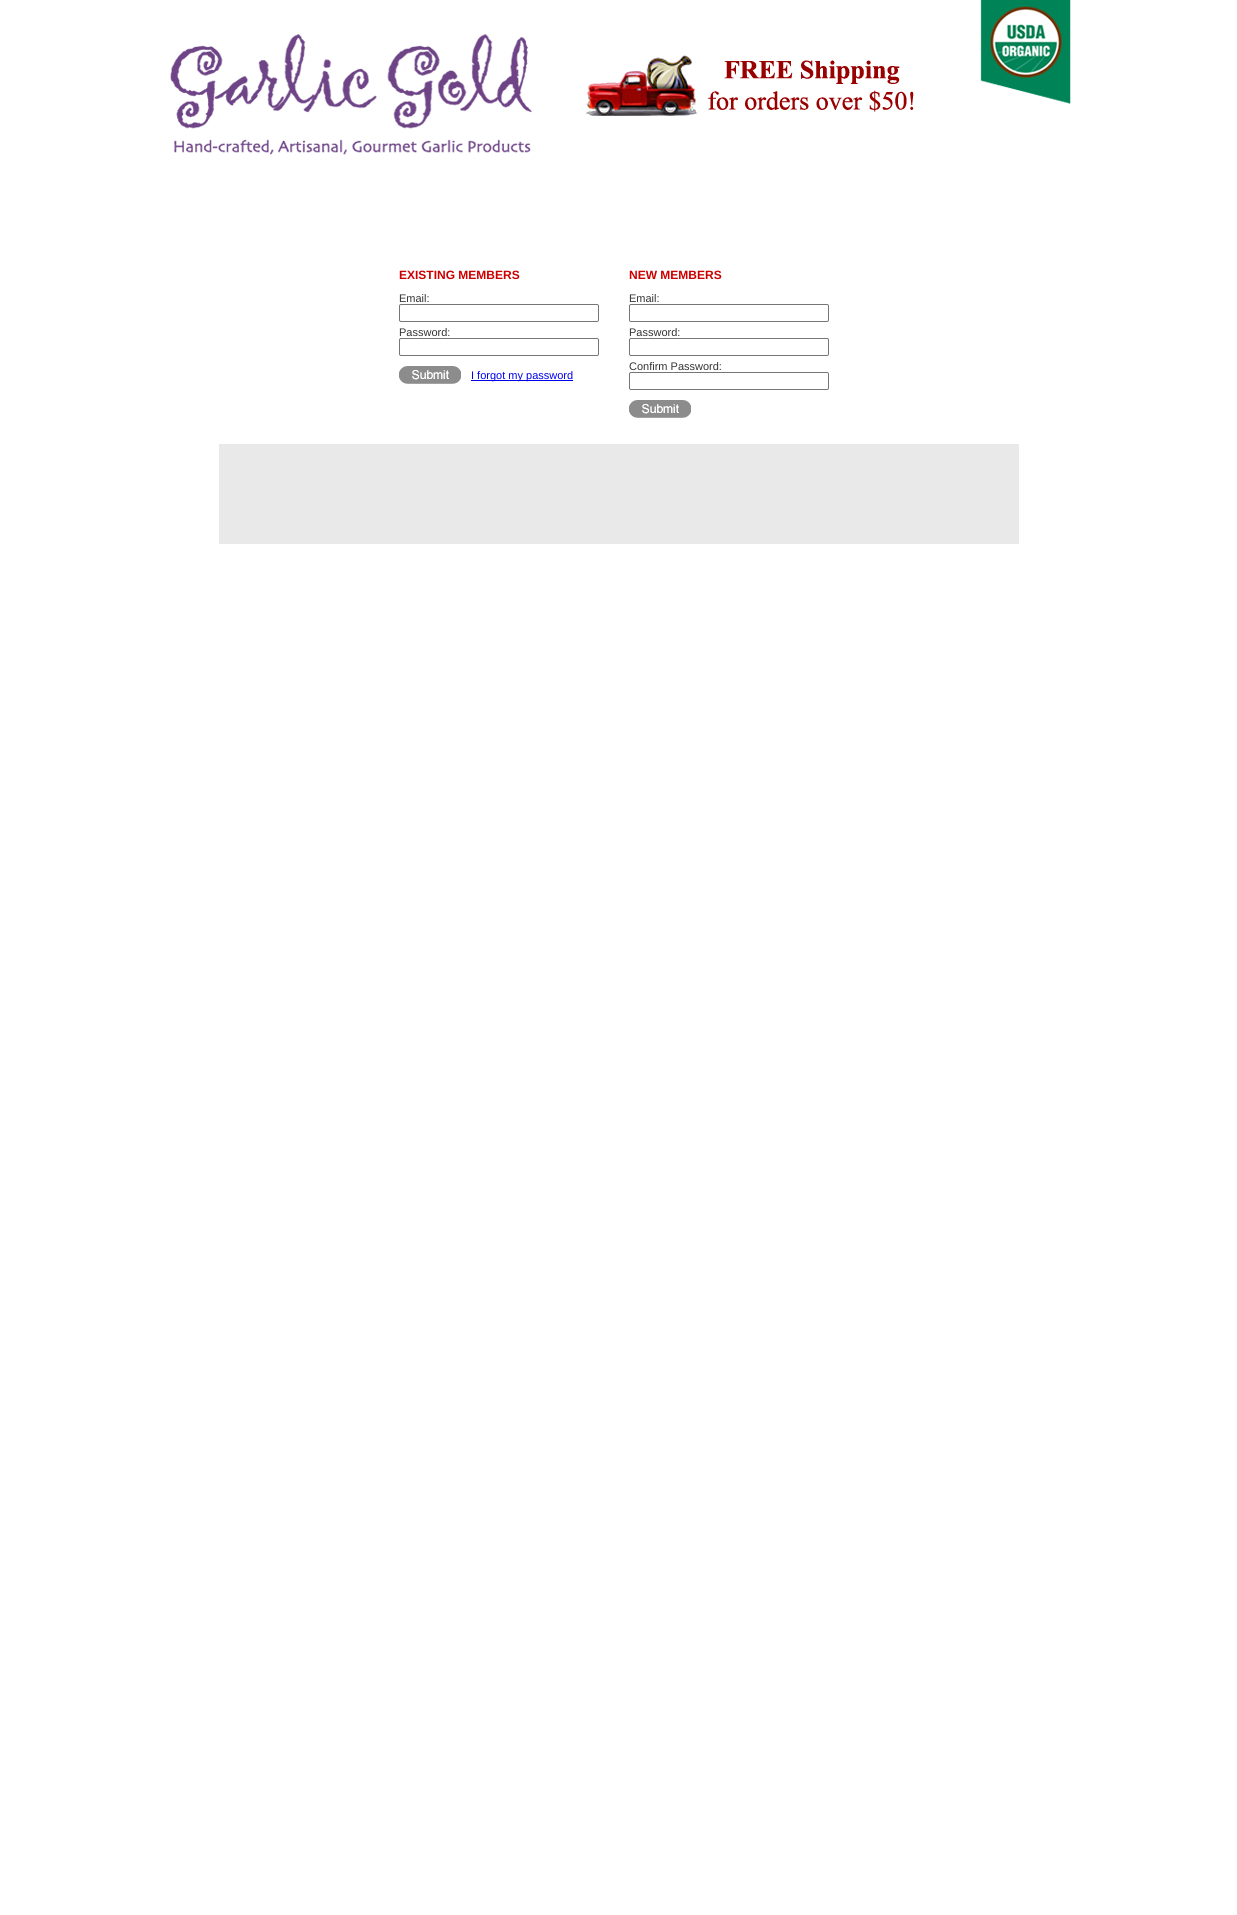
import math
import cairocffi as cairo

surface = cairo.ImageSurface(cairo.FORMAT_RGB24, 1237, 1915)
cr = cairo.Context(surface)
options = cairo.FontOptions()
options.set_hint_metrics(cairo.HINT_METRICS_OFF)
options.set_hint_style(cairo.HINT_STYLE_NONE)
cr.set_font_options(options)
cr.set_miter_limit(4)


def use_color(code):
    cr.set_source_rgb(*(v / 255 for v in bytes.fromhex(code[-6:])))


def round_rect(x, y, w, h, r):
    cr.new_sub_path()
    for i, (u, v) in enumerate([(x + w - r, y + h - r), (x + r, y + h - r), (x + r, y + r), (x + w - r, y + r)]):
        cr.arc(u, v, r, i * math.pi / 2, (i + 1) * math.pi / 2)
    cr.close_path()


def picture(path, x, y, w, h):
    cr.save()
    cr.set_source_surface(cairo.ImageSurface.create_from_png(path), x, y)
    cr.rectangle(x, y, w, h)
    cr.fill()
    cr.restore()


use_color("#ffffff")
cr.paint()
picture("img1.png", 170, 0, 901, 155)
cr.select_font_face("Liberation Sans", cairo.FONT_SLANT_NORMAL, cairo.FONT_WEIGHT_BOLD)
cr.set_font_size(12)
use_color("#cc0000")
cr.move_to(399, 279)
cr.show_text("EXISTING MEMBERS")
cr.select_font_face("Liberation Sans")
cr.set_font_size(11)
use_color("#333333")
cr.move_to(399, 302)
cr.show_text("Email:")
round_rect(399.5, 304.5, 199, 17, 1.5)
use_color("#767676")
cr.set_line_width(1)
cr.stroke()
use_color("#333333")
cr.move_to(399, 336)
cr.show_text("Password:")
round_rect(399.5, 338.5, 199, 17, 1.5)
use_color("#767676")
cr.stroke()
picture("img2.png", 399, 366, 62, 18)
use_color("#0000ee")
cr.rectangle(471, 380, 102, 1)
cr.fill()
cr.move_to(471, 379)
cr.show_text("I forgot my password")
cr.select_font_face("Liberation Sans", cairo.FONT_SLANT_NORMAL, cairo.FONT_WEIGHT_BOLD)
cr.set_font_size(12)
use_color("#cc0000")
cr.move_to(629, 279)
cr.show_text("NEW MEMBERS")
cr.select_font_face("Liberation Sans")
cr.set_font_size(11)
use_color("#333333")
cr.move_to(629, 302)
cr.show_text("Email:")
round_rect(629.5, 304.5, 199, 17, 1.5)
use_color("#767676")
cr.stroke()
use_color("#333333")
cr.move_to(629, 336)
cr.show_text("Password:")
round_rect(629.5, 338.5, 199, 17, 1.5)
use_color("#767676")
cr.stroke()
use_color("#333333")
cr.move_to(629, 370)
cr.show_text("Confirm Password:")
round_rect(629.5, 372.5, 199, 17, 1.5)
use_color("#767676")
cr.stroke()
picture("img2.png", 629, 400, 62, 18)
use_color("#e9e9e9")
cr.rectangle(219, 444, 800, 100)
cr.fill()
surface.write_to_png("result.png")
